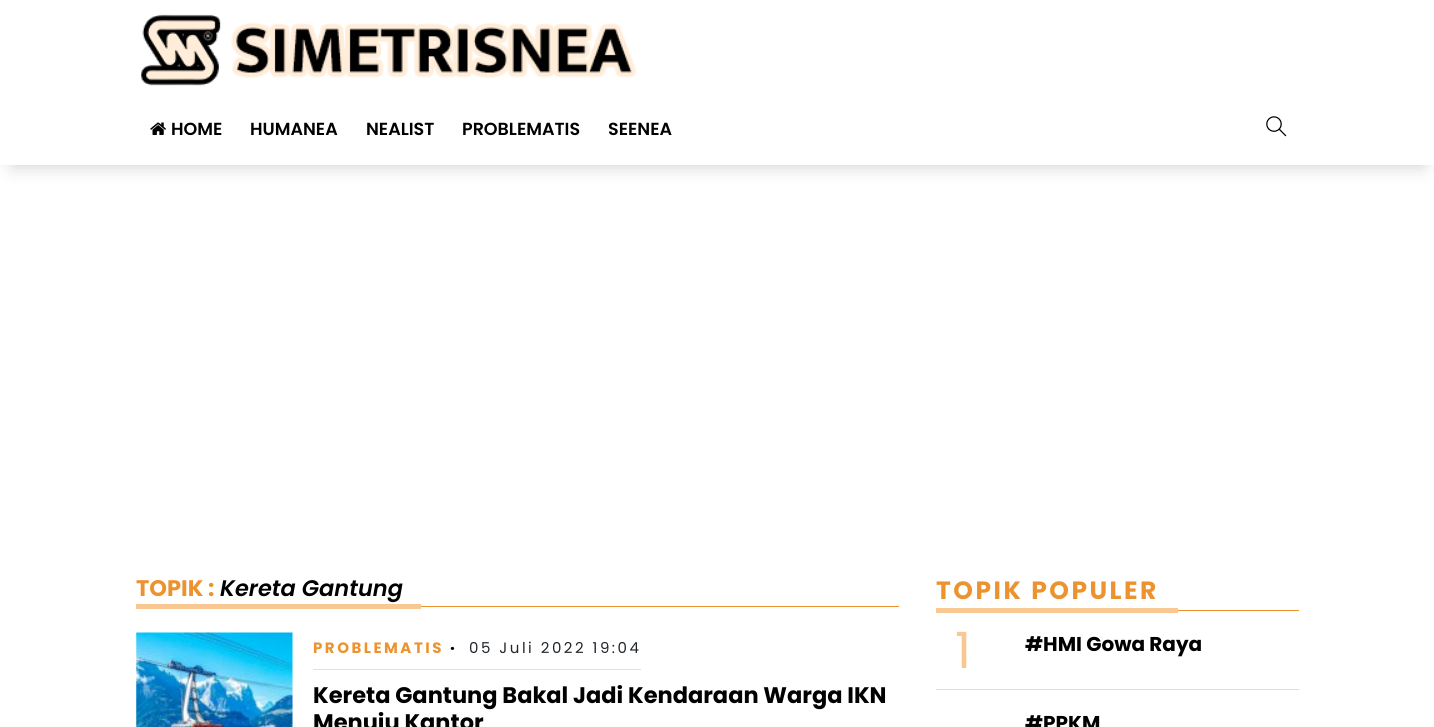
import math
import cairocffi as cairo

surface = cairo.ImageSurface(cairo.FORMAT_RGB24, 1434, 727)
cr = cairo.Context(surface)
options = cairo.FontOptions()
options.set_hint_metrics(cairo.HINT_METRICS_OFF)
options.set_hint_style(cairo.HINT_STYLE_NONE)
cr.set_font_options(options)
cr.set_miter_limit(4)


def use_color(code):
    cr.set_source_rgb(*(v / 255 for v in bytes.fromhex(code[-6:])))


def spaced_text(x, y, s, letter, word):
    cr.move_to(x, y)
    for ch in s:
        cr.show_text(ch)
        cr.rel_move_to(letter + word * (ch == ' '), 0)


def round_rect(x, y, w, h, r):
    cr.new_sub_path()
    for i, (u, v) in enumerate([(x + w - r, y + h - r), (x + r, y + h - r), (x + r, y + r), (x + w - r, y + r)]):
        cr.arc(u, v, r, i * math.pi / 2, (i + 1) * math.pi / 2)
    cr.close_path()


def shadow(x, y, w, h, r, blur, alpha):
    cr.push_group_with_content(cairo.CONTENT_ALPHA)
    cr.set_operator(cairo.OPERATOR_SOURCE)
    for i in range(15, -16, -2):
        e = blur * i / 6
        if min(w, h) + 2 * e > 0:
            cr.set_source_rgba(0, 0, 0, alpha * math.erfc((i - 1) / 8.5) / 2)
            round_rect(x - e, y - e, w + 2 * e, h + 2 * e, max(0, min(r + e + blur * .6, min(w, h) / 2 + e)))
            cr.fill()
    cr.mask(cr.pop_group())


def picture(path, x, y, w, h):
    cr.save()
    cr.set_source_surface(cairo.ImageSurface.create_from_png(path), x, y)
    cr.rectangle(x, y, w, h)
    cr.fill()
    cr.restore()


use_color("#ffffff")
cr.paint()
cr.save()
cr.rectangle(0, 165, 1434, 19)
cr.clip()
use_color("#cccccc")
shadow(13, 25, 1410, 140, 0, 9.5, 1)
cr.restore()
picture("img1.png", 141, 14, 496, 72)
picture("img2.png", 150, 122, 16, 13)
cr.select_font_face("Poppins SemiBold")
cr.set_font_size(17.5)
use_color("#000000")
cr.move_to(171, 135)
cr.show_text("HOME")
cr.move_to(250, 135)
cr.show_text("HUMANEA")
cr.move_to(366, 135)
cr.show_text("NEALIST")
cr.move_to(462, 135)
cr.show_text("PROBLEMATIS")
cr.move_to(608, 135)
cr.show_text("SEENEA")
picture("img3.png", 1266, 116, 21, 21)
use_color("#ec9330")
cr.rectangle(421, 606, 478, 1)
cr.fill()
cr.select_font_face("Poppins", cairo.FONT_SLANT_NORMAL, cairo.FONT_WEIGHT_BOLD)
cr.set_font_size(22.5)
cr.move_to(136, 596)
cr.show_text("TOPIK :")
cr.select_font_face("Poppins SemiBold", cairo.FONT_SLANT_ITALIC)
use_color("#000000")
cr.move_to(220, 596)
cr.show_text("Kereta Gantung")
use_color("#f9c791")
cr.rectangle(136, 604, 285, 5)
cr.fill()
picture("img4.png", 136, 632, 157, 95)
use_color("#dee2e6")
cr.rectangle(313, 669, 328, 1)
cr.fill()
cr.select_font_face("Poppins", cairo.FONT_SLANT_NORMAL, cairo.FONT_WEIGHT_BOLD)
cr.set_font_size(15)
use_color("#ec9330")
spaced_text(313, 653, "PROBLEMATIS", 2.5, 0)
cr.select_font_face("Poppins ExtraBold")
use_color("#000000")
spaced_text(450, 653, "·", 2.5, 0)
cr.select_font_face("Poppins")
use_color("#212529")
spaced_text(469, 653, "05 Juli 2022 19:04", 2.5, 0)
cr.select_font_face("Poppins", cairo.FONT_SLANT_NORMAL, cairo.FONT_WEIGHT_BOLD)
cr.set_font_size(22.5)
use_color("#000000")
cr.move_to(313, 703)
cr.show_text("Kereta Gantung Bakal Jadi Kendaraan Warga IKN")
cr.move_to(313, 730)
cr.show_text("Menuju Kantor")
use_color("#ec9330")
cr.rectangle(1178, 610, 121, 1)
cr.fill()
cr.set_font_size(25)
spaced_text(936, 599, "TOPIK POPULER", 2.5, 0)
use_color("#f9c791")
cr.rectangle(936, 608, 242, 5)
cr.fill()
use_color("#dcdcdc")
cr.rectangle(936, 689, 363, 1)
cr.fill()
cr.select_font_face("Poppins")
cr.set_font_size(50)
use_color("#f9c791")
cr.move_to(955, 668)
cr.show_text("1")
cr.select_font_face("Poppins", cairo.FONT_SLANT_NORMAL, cairo.FONT_WEIGHT_BOLD)
cr.set_font_size(20)
use_color("#000000")
cr.move_to(1025, 651)
cr.show_text("#HMI Gowa Raya")
cr.move_to(1025, 730)
cr.show_text("#PPKM")
surface.write_to_png("result.png")
